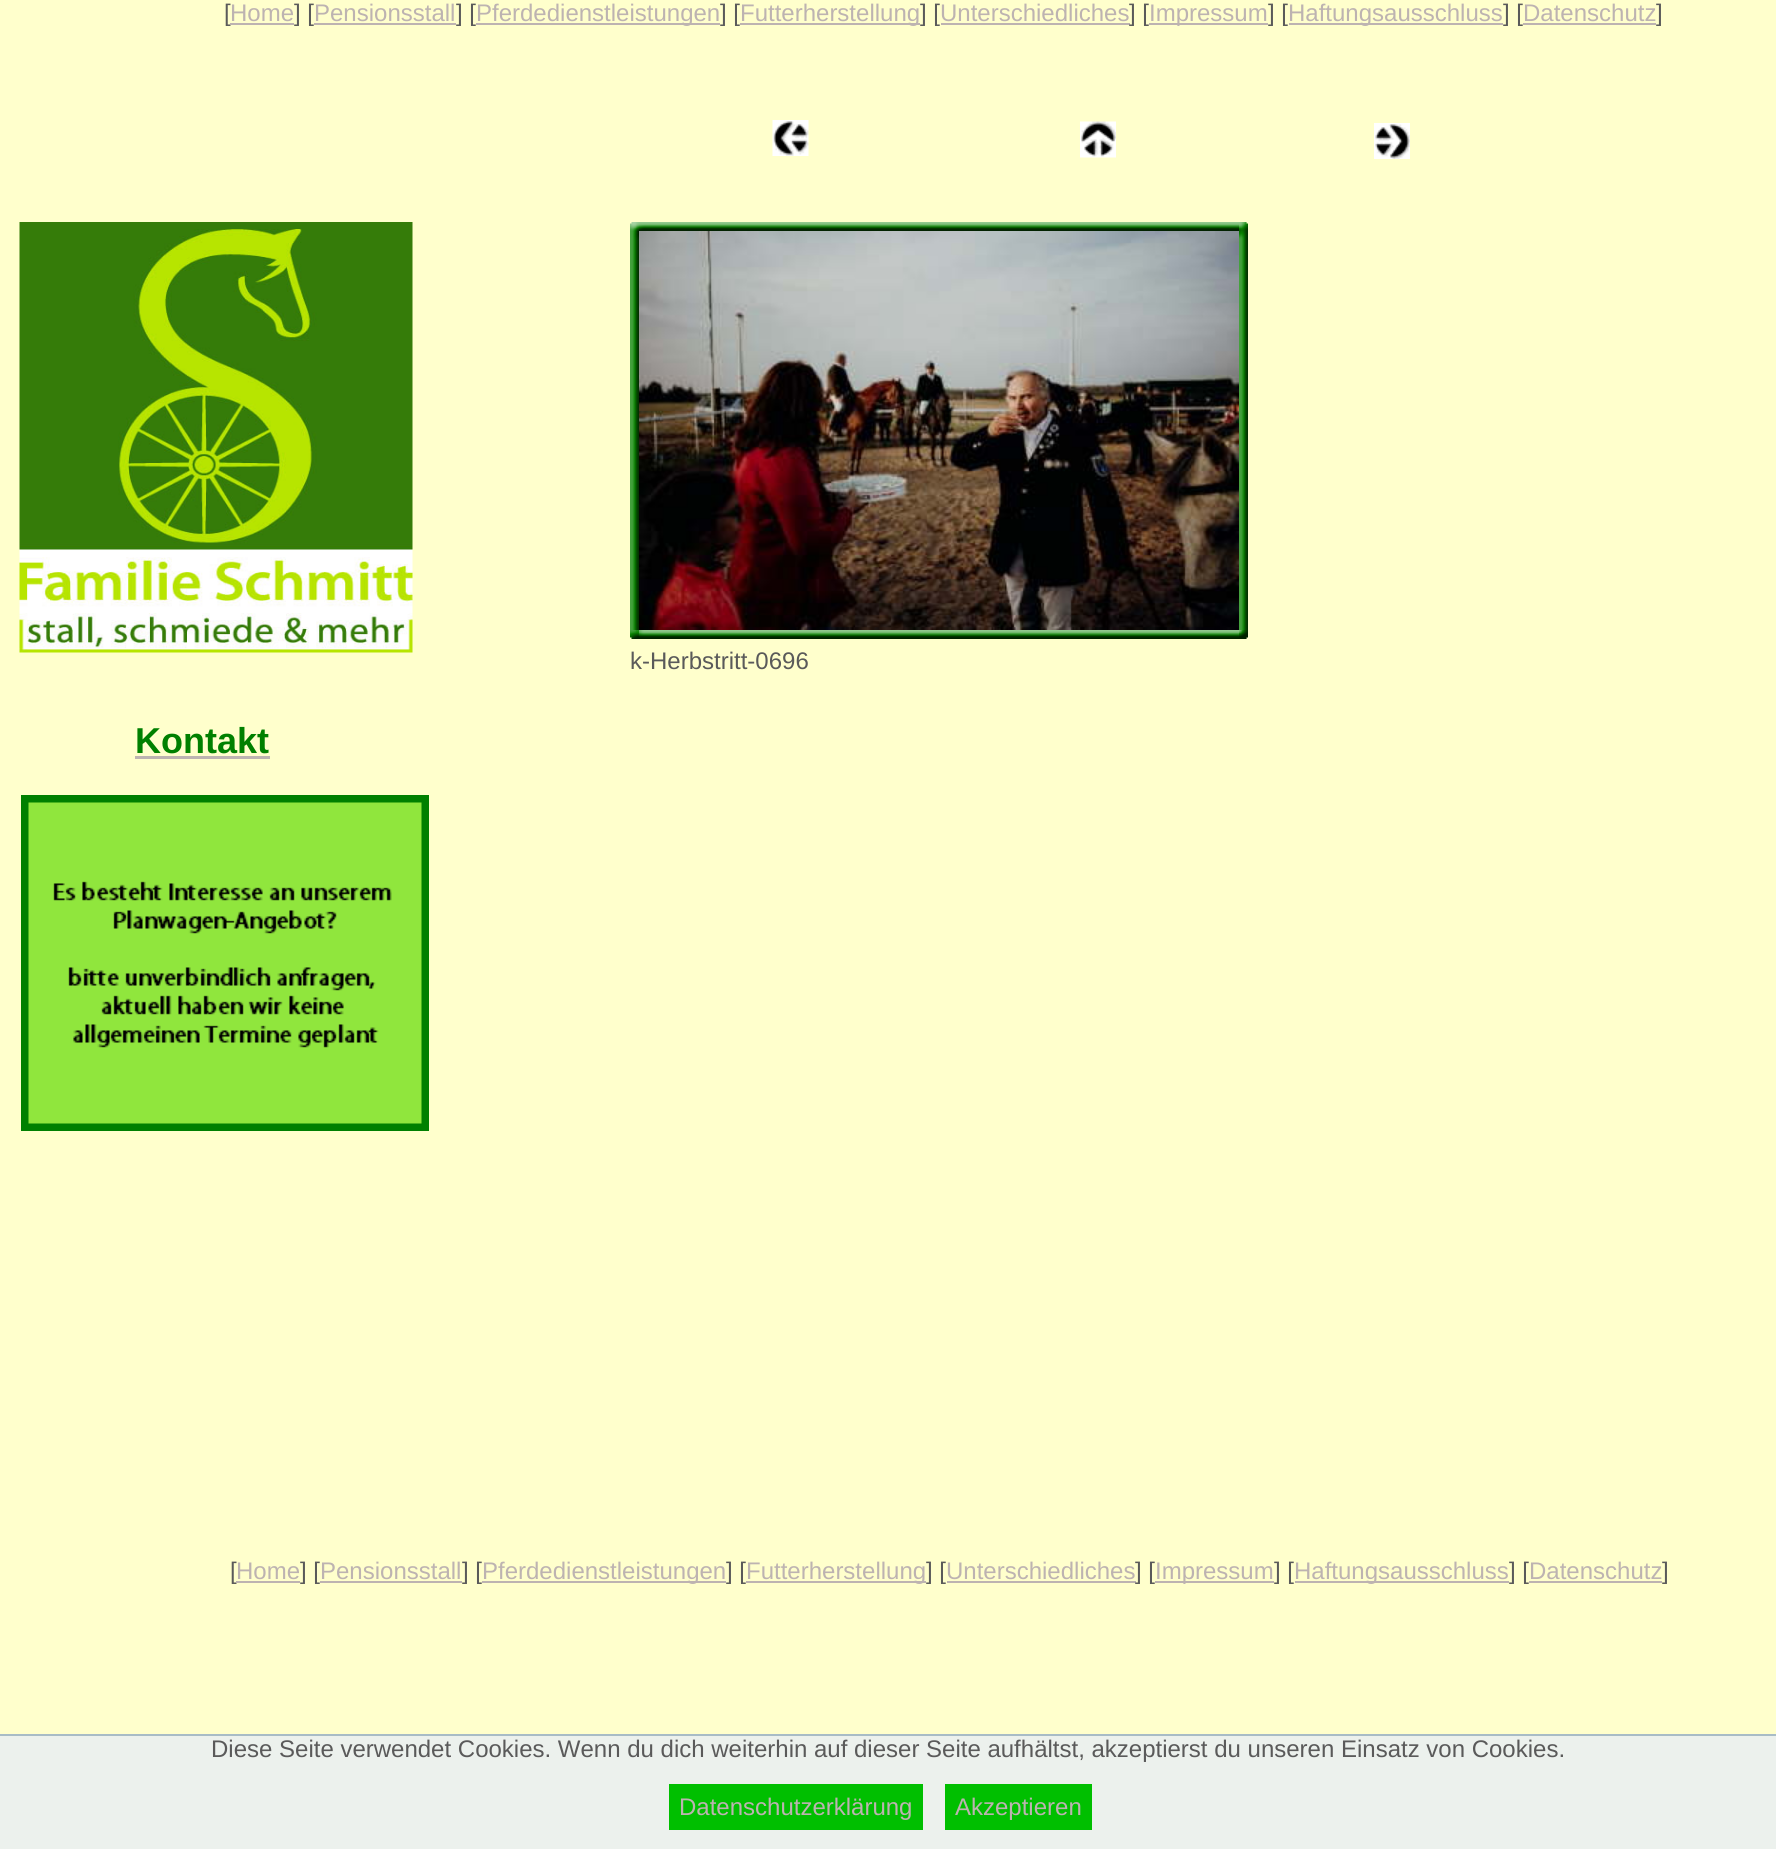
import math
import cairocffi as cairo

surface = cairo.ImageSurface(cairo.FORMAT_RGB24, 1776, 1849)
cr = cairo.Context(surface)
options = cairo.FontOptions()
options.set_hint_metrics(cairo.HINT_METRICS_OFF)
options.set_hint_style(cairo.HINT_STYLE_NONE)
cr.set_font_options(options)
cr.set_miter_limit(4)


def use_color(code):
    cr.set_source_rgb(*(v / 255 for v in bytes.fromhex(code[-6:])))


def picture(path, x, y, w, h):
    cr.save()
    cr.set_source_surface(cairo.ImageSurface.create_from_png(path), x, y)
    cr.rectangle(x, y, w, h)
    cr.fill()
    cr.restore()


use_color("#ffffcc")
cr.paint()
cr.select_font_face("Liberation Sans")
cr.set_font_size(24)
use_color("#5a5a5a")
cr.move_to(224, 21)
cr.show_text("[")
use_color("#bdb3b1")
cr.move_to(230, 21)
cr.show_text("Home")
cr.rectangle(230, 23, 64, 2)
cr.fill()
use_color("#5a5a5a")
cr.move_to(294, 21)
cr.show_text("] [")
use_color("#bdb3b1")
cr.move_to(314, 21)
cr.show_text("Pensionsstall")
cr.rectangle(314, 23, 142, 2)
cr.fill()
use_color("#5a5a5a")
cr.move_to(456, 21)
cr.show_text("] [")
use_color("#bdb3b1")
cr.rectangle(476, 23, 244, 2)
cr.fill()
cr.move_to(476, 21)
cr.show_text("Pferdedienstleistungen")
use_color("#5a5a5a")
cr.move_to(720, 21)
cr.show_text("] [")
use_color("#bdb3b1")
cr.rectangle(740, 23, 180, 2)
cr.fill()
cr.move_to(740, 21)
cr.show_text("Futterherstellung")
use_color("#5a5a5a")
cr.move_to(920, 21)
cr.show_text("] [")
use_color("#bdb3b1")
cr.move_to(940, 21)
cr.show_text("Unterschiedliches")
cr.rectangle(941, 23, 189, 2)
cr.fill()
use_color("#5a5a5a")
cr.move_to(1129, 21)
cr.show_text("] [")
use_color("#bdb3b1")
cr.rectangle(1149, 23, 119, 2)
cr.fill()
cr.move_to(1149, 21)
cr.show_text("Impressum")
use_color("#5a5a5a")
cr.move_to(1268, 21)
cr.show_text("] [")
use_color("#bdb3b1")
cr.rectangle(1289, 23, 214, 2)
cr.fill()
cr.move_to(1288, 21)
cr.show_text("Haftungsausschluss")
use_color("#5a5a5a")
cr.move_to(1503, 21)
cr.show_text("] [")
use_color("#bdb3b1")
cr.move_to(1523, 21)
cr.show_text("Datenschutz")
cr.rectangle(1523, 23, 133, 2)
cr.fill()
use_color("#5a5a5a")
cr.move_to(1656, 21)
cr.show_text("]")
picture("img1.png", 772, 120, 37, 36)
picture("img2.png", 1080, 121, 36, 37)
picture("img3.png", 1374, 123, 36, 36)
picture("img4.png", 19, 222, 394, 431)
picture("img5.png", 630, 222, 9, 9)
picture("img6.png", 639, 222, 600, 9)
picture("img7.png", 1239, 222, 9, 9)
picture("img8.png", 630, 231, 9, 399)
picture("img9.png", 639, 231, 600, 399)
picture("img10.png", 1239, 231, 9, 399)
picture("img11.png", 630, 630, 9, 9)
picture("img12.png", 639, 630, 600, 9)
picture("img13.png", 1239, 630, 9, 9)
cr.move_to(630, 669)
cr.show_text("k-Herbstritt-0696")
cr.select_font_face("Liberation Sans", cairo.FONT_SLANT_NORMAL, cairo.FONT_WEIGHT_BOLD)
cr.set_font_size(36)
use_color("#008000")
cr.move_to(135, 753)
cr.show_text("Kontakt")
use_color("#bdb3b1")
cr.rectangle(135, 756, 135, 3)
cr.fill()
picture("img14.png", 21, 795, 408, 336)
cr.select_font_face("Liberation Sans")
cr.set_font_size(24)
use_color("#5a5a5a")
cr.move_to(230, 1579)
cr.show_text("[")
use_color("#bdb3b1")
cr.move_to(236, 1579)
cr.show_text("Home")
cr.rectangle(236, 1581, 64, 2)
cr.fill()
use_color("#5a5a5a")
cr.move_to(300, 1579)
cr.show_text("] [")
use_color("#bdb3b1")
cr.move_to(320, 1579)
cr.show_text("Pensionsstall")
cr.rectangle(320, 1581, 142, 2)
cr.fill()
use_color("#5a5a5a")
cr.move_to(462, 1579)
cr.show_text("] [")
use_color("#bdb3b1")
cr.rectangle(482, 1581, 244, 2)
cr.fill()
cr.move_to(482, 1579)
cr.show_text("Pferdedienstleistungen")
use_color("#5a5a5a")
cr.move_to(726, 1579)
cr.show_text("] [")
use_color("#bdb3b1")
cr.rectangle(746, 1581, 180, 2)
cr.fill()
cr.move_to(746, 1579)
cr.show_text("Futterherstellung")
use_color("#5a5a5a")
cr.move_to(926, 1579)
cr.show_text("] [")
use_color("#bdb3b1")
cr.move_to(946, 1579)
cr.show_text("Unterschiedliches")
cr.rectangle(947, 1581, 189, 2)
cr.fill()
use_color("#5a5a5a")
cr.move_to(1135, 1579)
cr.show_text("] [")
use_color("#bdb3b1")
cr.rectangle(1155, 1581, 119, 2)
cr.fill()
cr.move_to(1155, 1579)
cr.show_text("Impressum")
use_color("#5a5a5a")
cr.move_to(1274, 1579)
cr.show_text("] [")
use_color("#bdb3b1")
cr.rectangle(1295, 1581, 214, 2)
cr.fill()
cr.move_to(1294, 1579)
cr.show_text("Haftungsausschluss")
use_color("#5a5a5a")
cr.move_to(1509, 1579)
cr.show_text("] [")
use_color("#bdb3b1")
cr.move_to(1529, 1579)
cr.show_text("Datenschutz")
cr.rectangle(1529, 1581, 133, 2)
cr.fill()
use_color("#5a5a5a")
cr.move_to(1662, 1579)
cr.show_text("]")
use_color("#ecf1ed")
cr.rectangle(0, 1736, 1776, 113)
cr.fill()
use_color("#a8bcc6")
cr.rectangle(0, 1734, 1776, 2)
cr.fill()
use_color("#5a5a5a")
cr.move_to(211, 1757)
cr.show_text("Diese Seite verwendet Cookies. Wenn du dich weiterhin auf dieser Seite aufhältst, akzeptierst du unseren Einsatz von Cookies.")
use_color("#00bf00")
cr.rectangle(669, 1784, 254, 46)
cr.fill()
use_color("#bdb3b1")
cr.move_to(679, 1815)
cr.show_text("Datenschutzerklärung")
use_color("#00bf00")
cr.rectangle(945, 1784, 147, 46)
cr.fill()
use_color("#bdb3b1")
cr.move_to(955, 1815)
cr.show_text("Akzeptieren")
surface.write_to_png("result.png")
